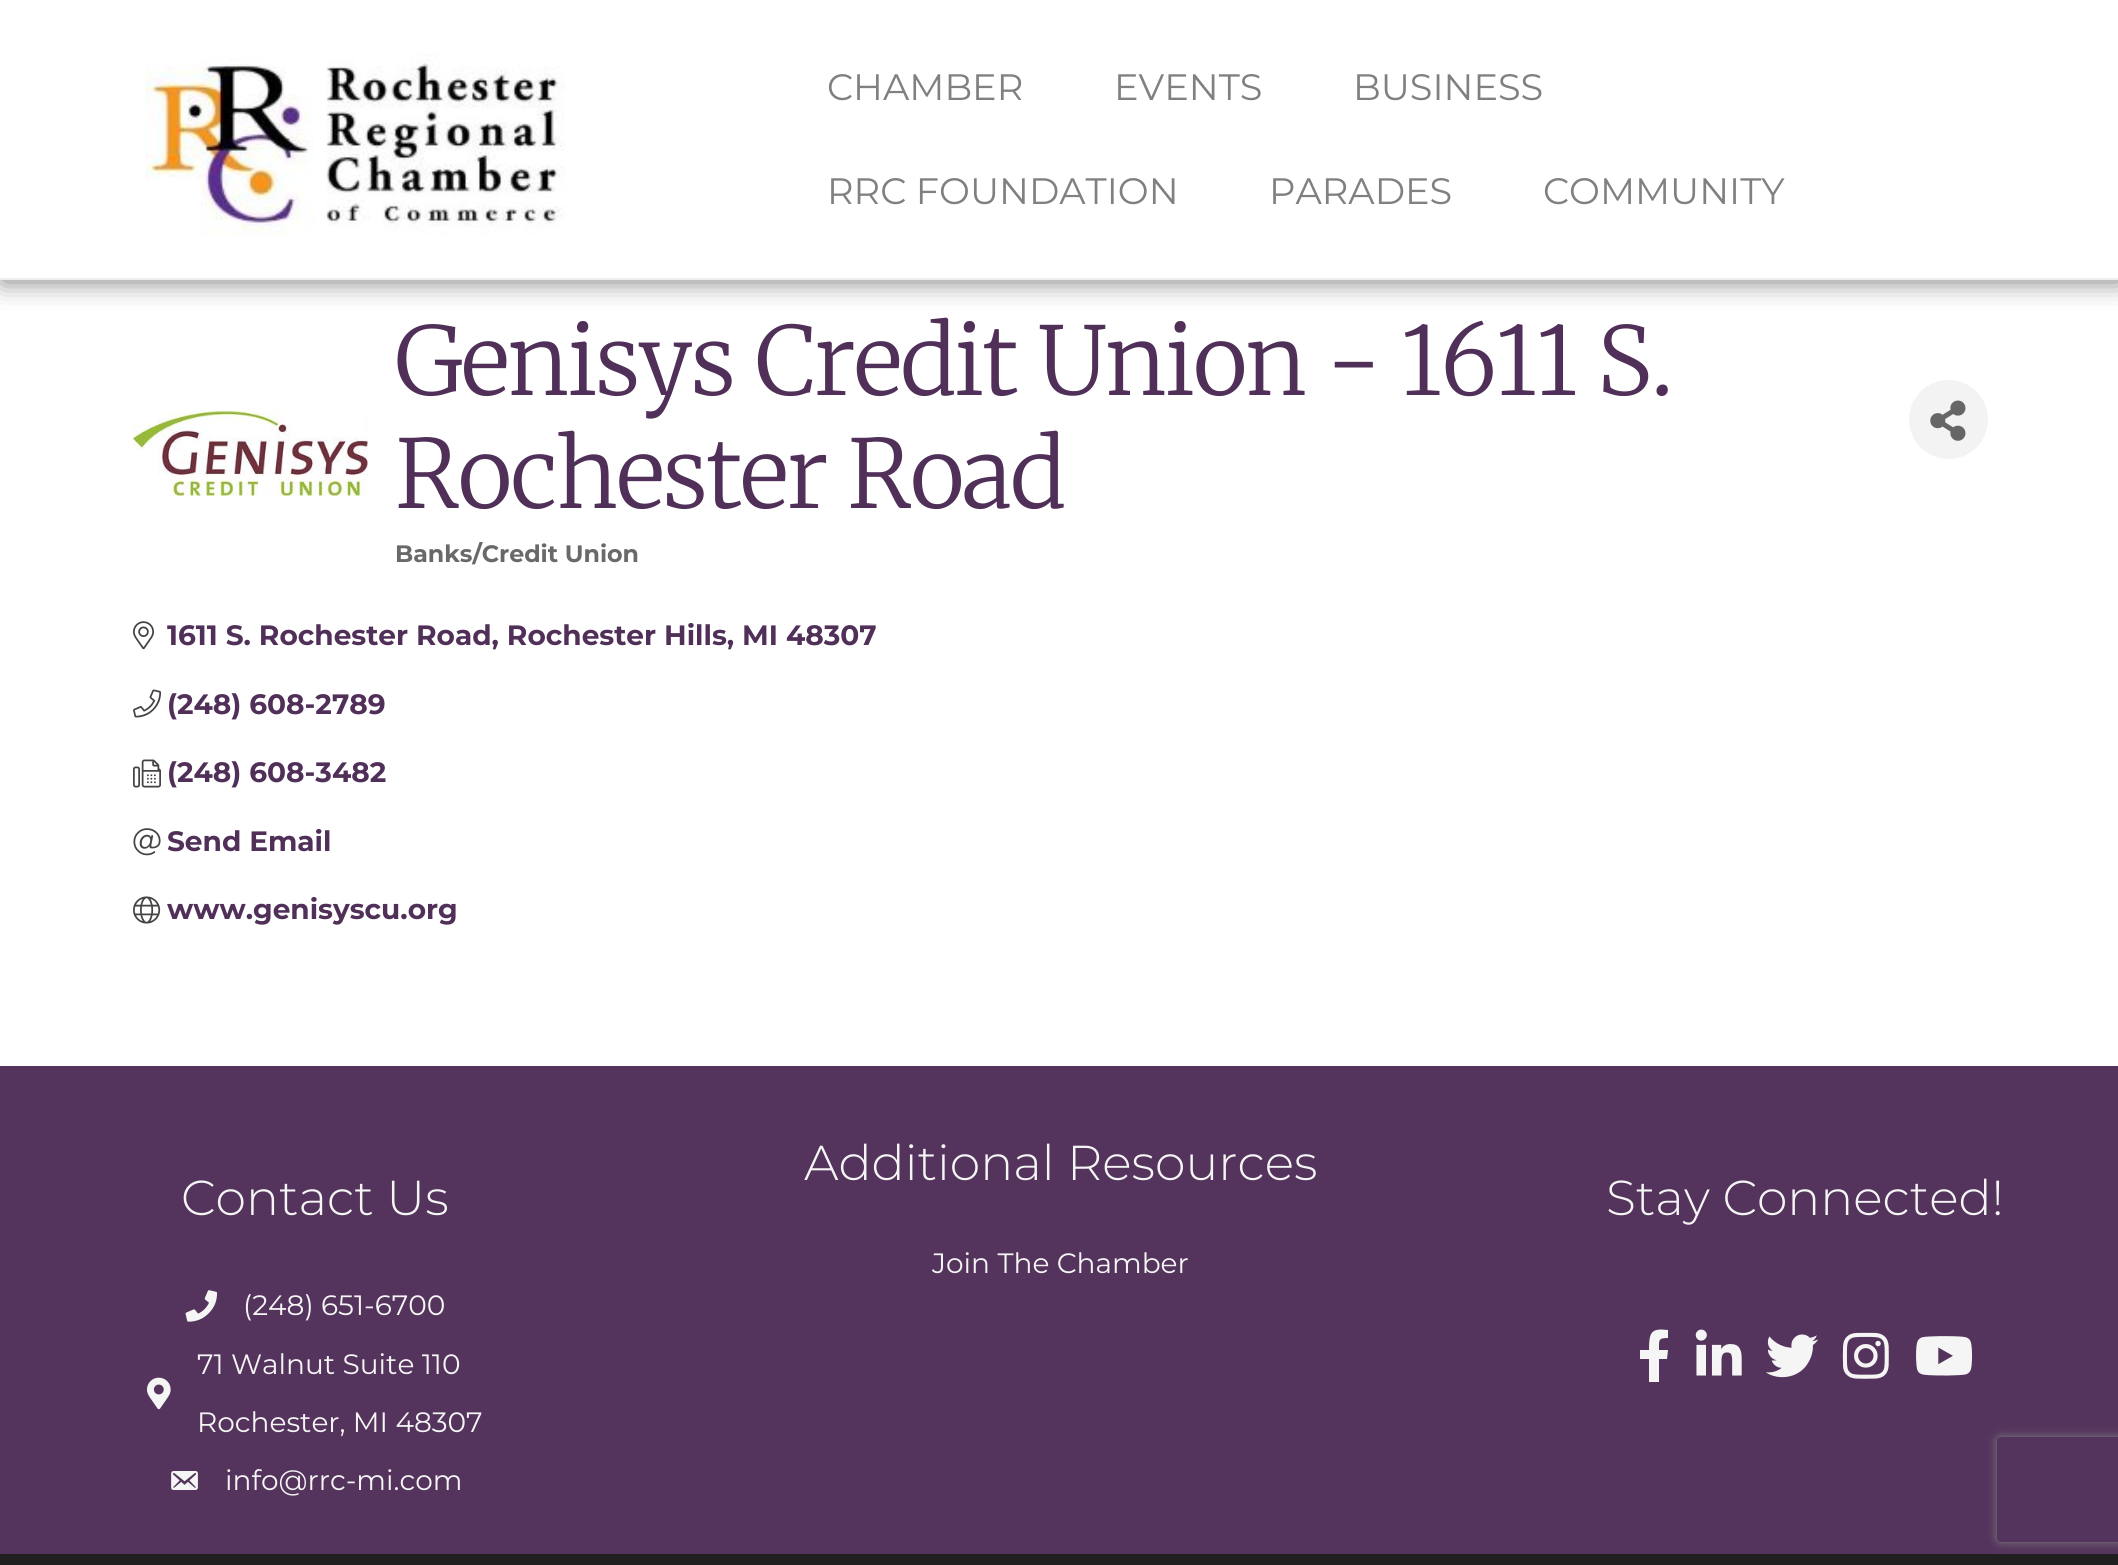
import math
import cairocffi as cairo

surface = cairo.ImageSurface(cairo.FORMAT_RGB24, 2118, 1565)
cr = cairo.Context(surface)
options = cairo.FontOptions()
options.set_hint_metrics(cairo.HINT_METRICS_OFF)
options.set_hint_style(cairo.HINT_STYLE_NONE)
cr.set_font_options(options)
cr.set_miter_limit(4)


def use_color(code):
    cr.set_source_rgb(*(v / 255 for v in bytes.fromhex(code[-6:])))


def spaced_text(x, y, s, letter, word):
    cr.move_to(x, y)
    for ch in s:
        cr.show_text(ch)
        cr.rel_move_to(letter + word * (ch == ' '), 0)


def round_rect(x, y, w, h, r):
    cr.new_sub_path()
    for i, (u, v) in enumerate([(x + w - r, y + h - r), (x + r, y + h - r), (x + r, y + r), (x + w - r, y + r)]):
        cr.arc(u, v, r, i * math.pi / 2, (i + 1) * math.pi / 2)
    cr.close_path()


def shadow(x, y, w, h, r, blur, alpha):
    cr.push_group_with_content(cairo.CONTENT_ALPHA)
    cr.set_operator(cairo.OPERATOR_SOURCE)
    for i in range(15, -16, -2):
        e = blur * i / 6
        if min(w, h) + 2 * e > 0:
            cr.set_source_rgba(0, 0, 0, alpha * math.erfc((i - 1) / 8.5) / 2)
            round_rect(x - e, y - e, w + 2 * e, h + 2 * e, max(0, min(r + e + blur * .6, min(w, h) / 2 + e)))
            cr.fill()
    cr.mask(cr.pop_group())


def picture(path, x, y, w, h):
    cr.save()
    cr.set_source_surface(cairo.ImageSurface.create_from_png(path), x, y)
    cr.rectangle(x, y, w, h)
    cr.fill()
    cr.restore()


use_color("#ffffff")
cr.paint()
use_color("#000000")
shadow(2, 2, 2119, 280, 0, 13, 0.5)
use_color("#ffffff")
cr.rectangle(0, 0, 2118, 278)
cr.fill()
use_color("#eeeeee")
cr.rectangle(0, 278, 2118, 2)
cr.fill()
picture("img1.png", 145, 53, 420, 183)
cr.select_font_face("Montserrat")
cr.set_font_size(36.75)
use_color("#808080")
cr.move_to(827, 100)
cr.show_text("CHAMBER")
cr.move_to(1114, 100)
cr.show_text("EVENTS")
cr.move_to(1353, 100)
cr.show_text("BUSINESS")
cr.move_to(827, 204)
cr.show_text("RRC FOUNDATION")
cr.move_to(1269, 204)
cr.show_text("PARADES")
cr.move_to(1543, 204)
cr.show_text("COMMUNITY")
picture("img2.png", 133, 411, 235, 85)
cr.select_font_face("Merriweather Light")
cr.set_font_size(94.5)
use_color("#503058")
spaced_text(395, 395, "Genisys Credit Union - 1611 S.", -1.75, 0)
spaced_text(395, 508, "Rochester Road", -1.75, 0)
use_color("#f3f3f3")
cr.new_path()
cr.arc(1948.5, 419.5, 39.5, 0, 2 * math.pi)
cr.fill()
picture("img3.png", 1930, 400, 36, 41)
cr.select_font_face("Montserrat", cairo.FONT_SLANT_NORMAL, cairo.FONT_WEIGHT_BOLD)
cr.set_font_size(23.75)
use_color("#696969")
cr.move_to(395, 562)
cr.show_text("Banks/Credit Union")
picture("img4.png", 133, 621, 21, 29)
cr.set_font_size(28)
use_color("#503058")
cr.move_to(167, 645)
cr.show_text("1611 S. Rochester Road, Rochester Hills, MI 48307")
picture("img5.png", 133, 689, 29, 29)
cr.move_to(167, 714)
cr.show_text("(248) 608-2789")
picture("img6.png", 133, 759, 28, 29)
cr.move_to(167, 782)
cr.show_text("(248) 608-3482")
picture("img7.png", 133, 828, 28, 28)
cr.move_to(167, 851)
cr.show_text("Send Email")
picture("img8.png", 133, 896, 28, 28)
cr.move_to(167, 919)
cr.show_text("www.genisyscu.org")
use_color("#54345c")
cr.rectangle(0, 1066, 2118, 488)
cr.fill()
cr.select_font_face("Montserrat Light")
cr.set_font_size(49)
use_color("#f5f5f5")
cr.move_to(181, 1215)
cr.show_text("Contact Us")
picture("img9.png", 185, 1290, 33, 32)
cr.select_font_face("Montserrat")
cr.set_font_size(28)
cr.move_to(243, 1315)
cr.show_text("(248) 651-6700")
picture("img10.png", 147, 1377, 24, 33)
cr.move_to(197, 1374)
cr.show_text("71 Walnut Suite 110")
cr.move_to(197, 1432)
cr.show_text("Rochester, MI 48307")
picture("img11.png", 171, 1471, 27, 19)
cr.move_to(225, 1490)
cr.show_text("info@rrc-mi.com")
cr.select_font_face("Montserrat Light")
cr.set_font_size(49)
cr.move_to(804, 1180)
cr.show_text("Additional Resources")
cr.select_font_face("Montserrat")
cr.set_font_size(28)
cr.move_to(932, 1273)
cr.show_text("Join The Chamber")
cr.select_font_face("Montserrat Light")
cr.set_font_size(49)
cr.move_to(1606, 1215)
cr.show_text("Stay Connected!")
cr.new_path()
cr.move_to(1667, 1359)
cr.line_to(1659, 1359)
cr.line_to(1659, 1382)
cr.line_to(1649, 1382)
cr.line_to(1649, 1359)
cr.line_to(1640, 1359)
cr.line_to(1640, 1350)
cr.line_to(1649, 1350)
cr.curve_to(1649, 1332, 1651, 1328, 1668, 1330)
cr.line_to(1668, 1338)
cr.curve_to(1658, 1338, 1659, 1340, 1659, 1350)
cr.line_to(1668, 1350)
cr.close_path()
cr.fill()
picture("img12.png", 1695, 1329, 47, 47)
picture("img13.png", 1766, 1334, 53, 44)
picture("img14.png", 1842, 1332, 47, 47)
picture("img15.png", 1916, 1336, 57, 40)
use_color("#202020")
cr.rectangle(0, 1554, 2118, 11)
cr.fill()
cr.save()
cr.set_fill_rule(cairo.FILL_RULE_EVEN_ODD)
cr.new_path()
cr.move_to(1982, 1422)
cr.line_to(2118, 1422)
cr.line_to(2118, 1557)
cr.line_to(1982, 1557)
cr.close_path()
cr.move_to(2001, 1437)
cr.line_to(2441, 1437)
cr.curve_to(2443, 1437, 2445, 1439, 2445, 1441)
cr.line_to(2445, 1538)
cr.curve_to(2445, 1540, 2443, 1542, 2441, 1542)
cr.line_to(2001, 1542)
cr.curve_to(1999, 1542, 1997, 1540, 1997, 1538)
cr.line_to(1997, 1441)
cr.curve_to(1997, 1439, 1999, 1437, 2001, 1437)
cr.close_path()
cr.clip()
use_color("#808080")
shadow(1997, 1437, 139, 105, 4, 4.5, 1)
cr.restore()
surface.write_to_png("result.png")
